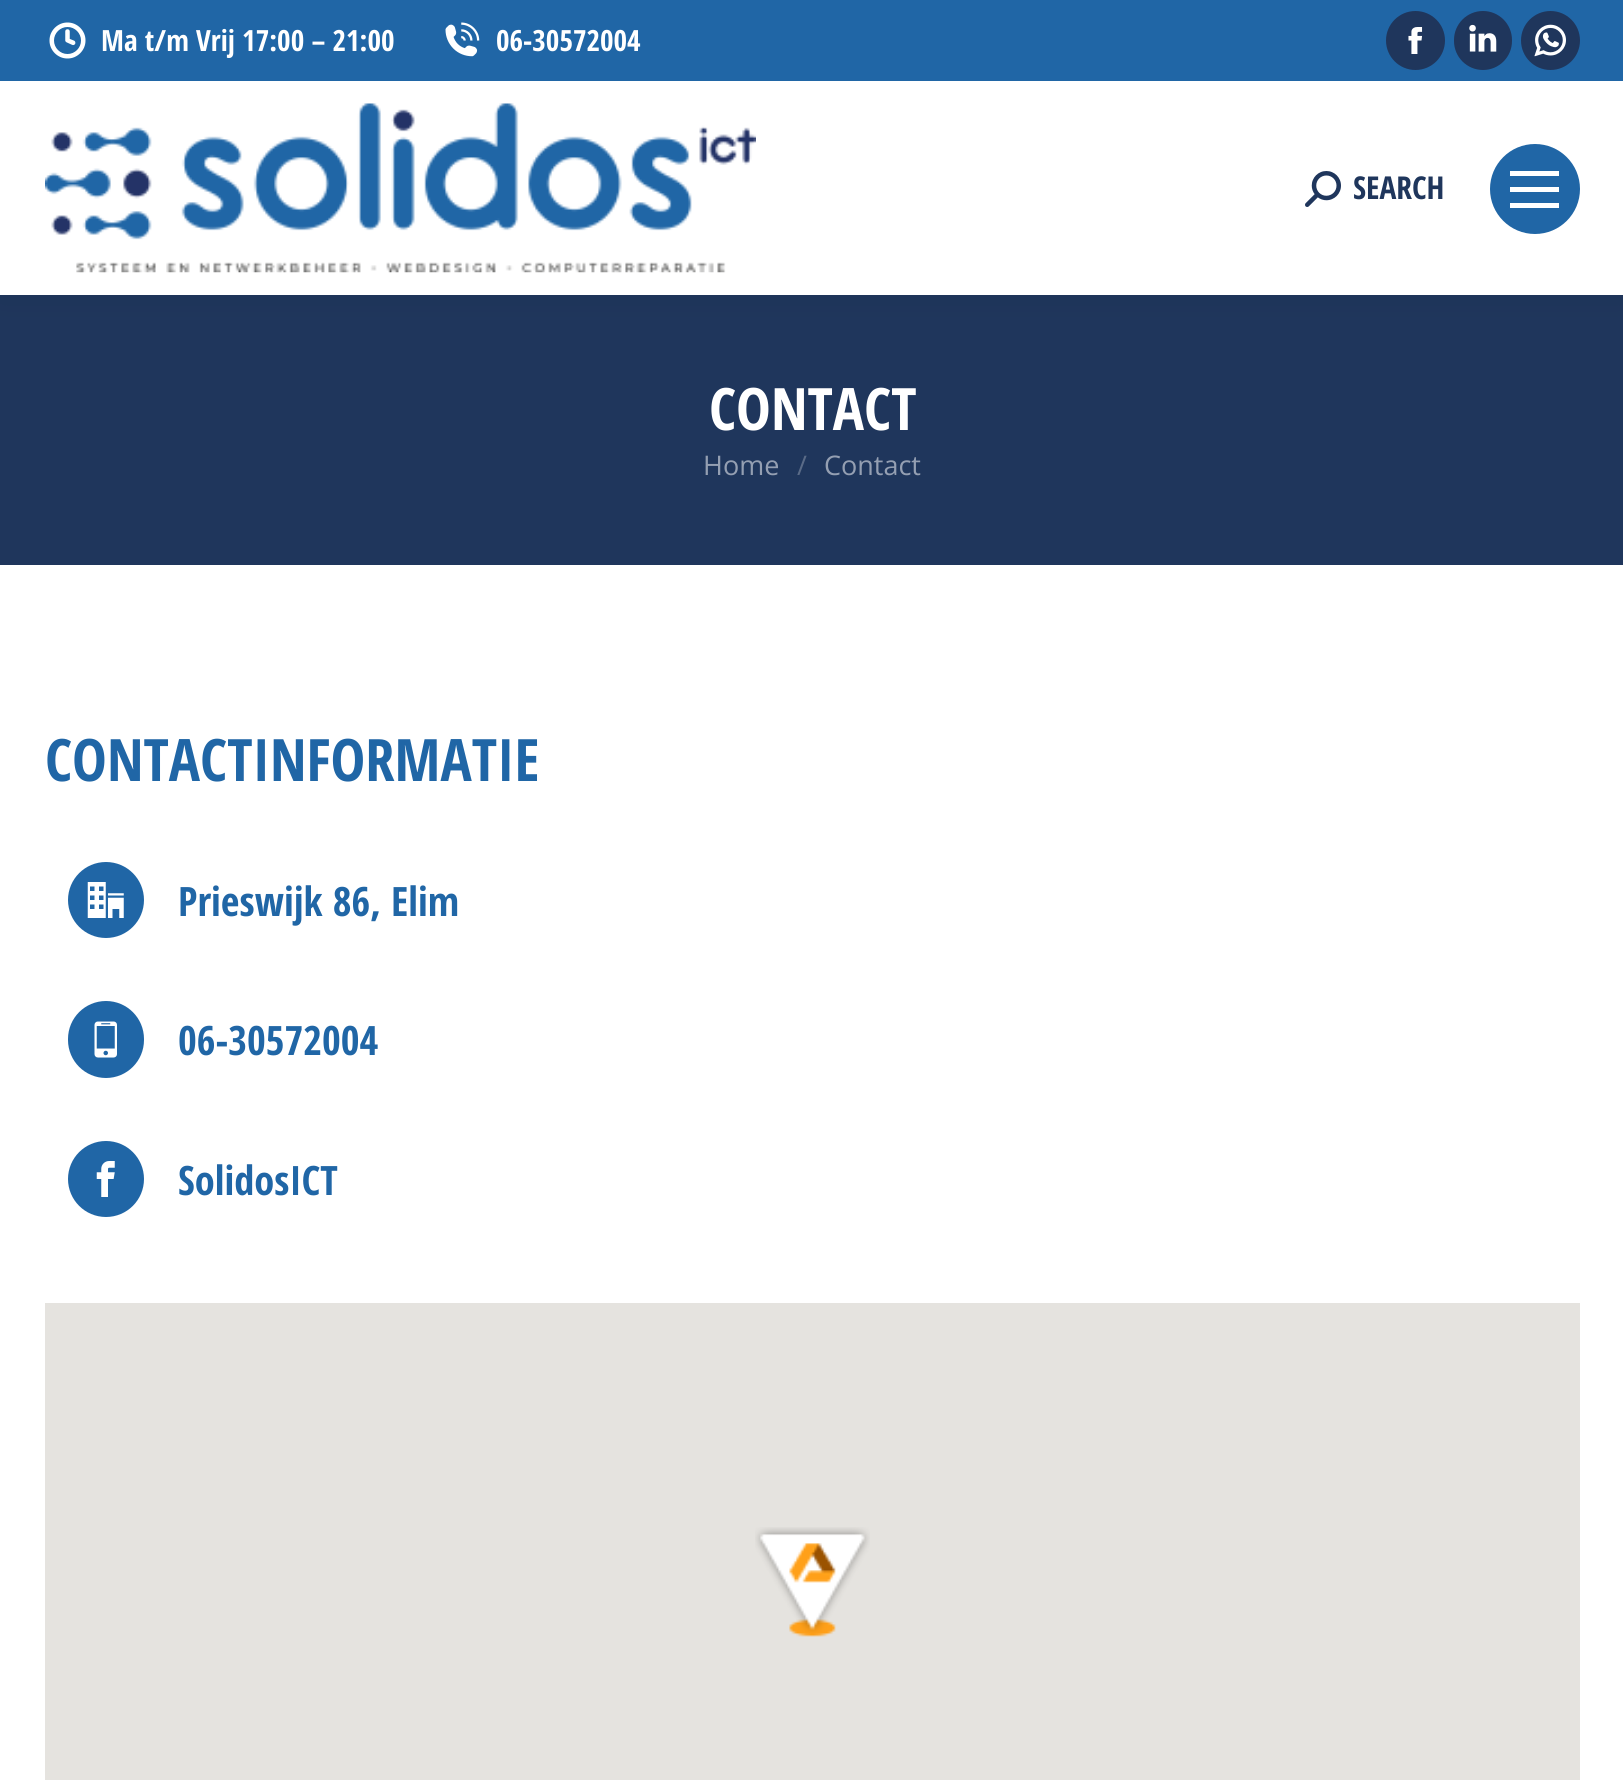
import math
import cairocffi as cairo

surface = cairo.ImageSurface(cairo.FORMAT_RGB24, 1623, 1780)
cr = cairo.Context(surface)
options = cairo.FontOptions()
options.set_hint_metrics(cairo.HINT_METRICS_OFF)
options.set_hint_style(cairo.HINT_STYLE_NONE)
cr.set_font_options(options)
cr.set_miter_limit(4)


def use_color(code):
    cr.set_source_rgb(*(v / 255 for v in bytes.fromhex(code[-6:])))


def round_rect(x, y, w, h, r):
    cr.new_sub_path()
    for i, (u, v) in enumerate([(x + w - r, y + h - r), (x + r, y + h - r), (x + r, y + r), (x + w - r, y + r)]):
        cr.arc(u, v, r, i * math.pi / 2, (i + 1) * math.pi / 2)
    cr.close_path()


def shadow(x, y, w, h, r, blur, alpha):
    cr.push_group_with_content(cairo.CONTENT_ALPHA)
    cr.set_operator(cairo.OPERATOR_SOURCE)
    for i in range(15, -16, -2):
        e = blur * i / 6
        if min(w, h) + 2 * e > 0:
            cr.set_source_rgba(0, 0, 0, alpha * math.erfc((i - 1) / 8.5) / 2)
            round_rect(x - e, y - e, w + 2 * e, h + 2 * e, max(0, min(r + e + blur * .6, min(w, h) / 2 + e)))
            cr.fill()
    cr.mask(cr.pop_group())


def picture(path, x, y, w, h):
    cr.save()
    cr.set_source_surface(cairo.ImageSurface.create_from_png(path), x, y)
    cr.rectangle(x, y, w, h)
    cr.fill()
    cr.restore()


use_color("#ffffff")
cr.paint()
use_color("#1f365c")
cr.rectangle(0, 295, 1623, 270)
cr.fill()
use_color("#000000")
shadow(-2, -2, 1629, 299, 0, 17, 0.07)
use_color("#ffffff")
cr.rectangle(0, 81, 1623, 214)
cr.fill()
use_color("#2066a6")
cr.rectangle(0, 0, 1623, 81)
cr.fill()
picture("img1.png", 49, 22, 37, 37)
cr.select_font_face("Open Sans Condensed", cairo.FONT_SLANT_NORMAL, cairo.FONT_WEIGHT_BOLD)
cr.set_font_size(29.25)
use_color("#ffffff")
cr.move_to(101, 51)
cr.show_text("Ma t/m Vrij 17:00 – 21:00")
picture("img2.png", 445, 22, 35, 35)
cr.move_to(496, 51)
cr.show_text("06-30572004")
use_color("#1f365c")
cr.new_path()
cr.arc(1415.5, 40.5, 29.5, 0, 2 * math.pi)
cr.fill()
picture("img3.png", 1408, 27, 15, 27)
round_rect(1454, 11, 58, 59, 29)
cr.fill()
picture("img4.png", 1469, 24, 28, 28)
cr.arc(1550.5, 40.5, 29.5, 0, 2 * math.pi)
cr.fill()
picture("img5.png", 1534, 24, 32, 33)
picture("img6.png", 45, 103, 711, 170)
picture("img7.png", 1305, 171, 36, 36)
cr.set_font_size(31.5)
cr.move_to(1353, 199)
cr.show_text("SEARCH")
use_color("#2066a6")
cr.new_path()
cr.arc(1535, 189, 45, 0, 2 * math.pi)
cr.fill()
use_color("#ffffff")
cr.rectangle(1510, 171, 49, 5)
cr.fill()
cr.rectangle(1510, 187, 49, 5)
cr.fill()
cr.rectangle(1510, 203, 49, 5)
cr.fill()
cr.set_font_size(58.5)
cr.move_to(709, 430)
cr.show_text("CONTACT")
cr.select_font_face("Open Sans")
cr.set_font_size(27)
use_color("#949fb2")
cr.move_to(703, 475)
cr.show_text("Home")
use_color("#5a6b87")
cr.move_to(797, 475)
cr.show_text("/")
use_color("#949fb2")
cr.move_to(824, 475)
cr.show_text("Contact")
cr.select_font_face("Open Sans Condensed", cairo.FONT_SLANT_NORMAL, cairo.FONT_WEIGHT_BOLD)
cr.set_font_size(58.5)
use_color("#2066a6")
cr.move_to(45, 781)
cr.show_text("CONTACTINFORMATIE")
cr.new_path()
cr.arc(106, 900, 38, 0, 2 * math.pi)
cr.fill()
picture("img8.png", 87, 882, 37, 36)
cr.set_font_size(40.5)
cr.move_to(178, 916)
cr.show_text("Prieswijk 86, Elim")
round_rect(68, 1001, 76, 77, 38)
cr.fill()
picture("img9.png", 94, 1021, 23, 37)
cr.move_to(178, 1055)
cr.show_text("06-30572004")
cr.new_path()
cr.arc(106, 1179, 38, 0, 2 * math.pi)
cr.fill()
picture("img10.png", 96, 1161, 19, 36)
cr.move_to(178, 1195)
cr.show_text("SolidosICT")
use_color("#e5e3df")
cr.rectangle(45, 1303, 1535, 477)
cr.fill()
picture("img11.png", 755, 1527, 115, 110)
surface.write_to_png("result.png")
